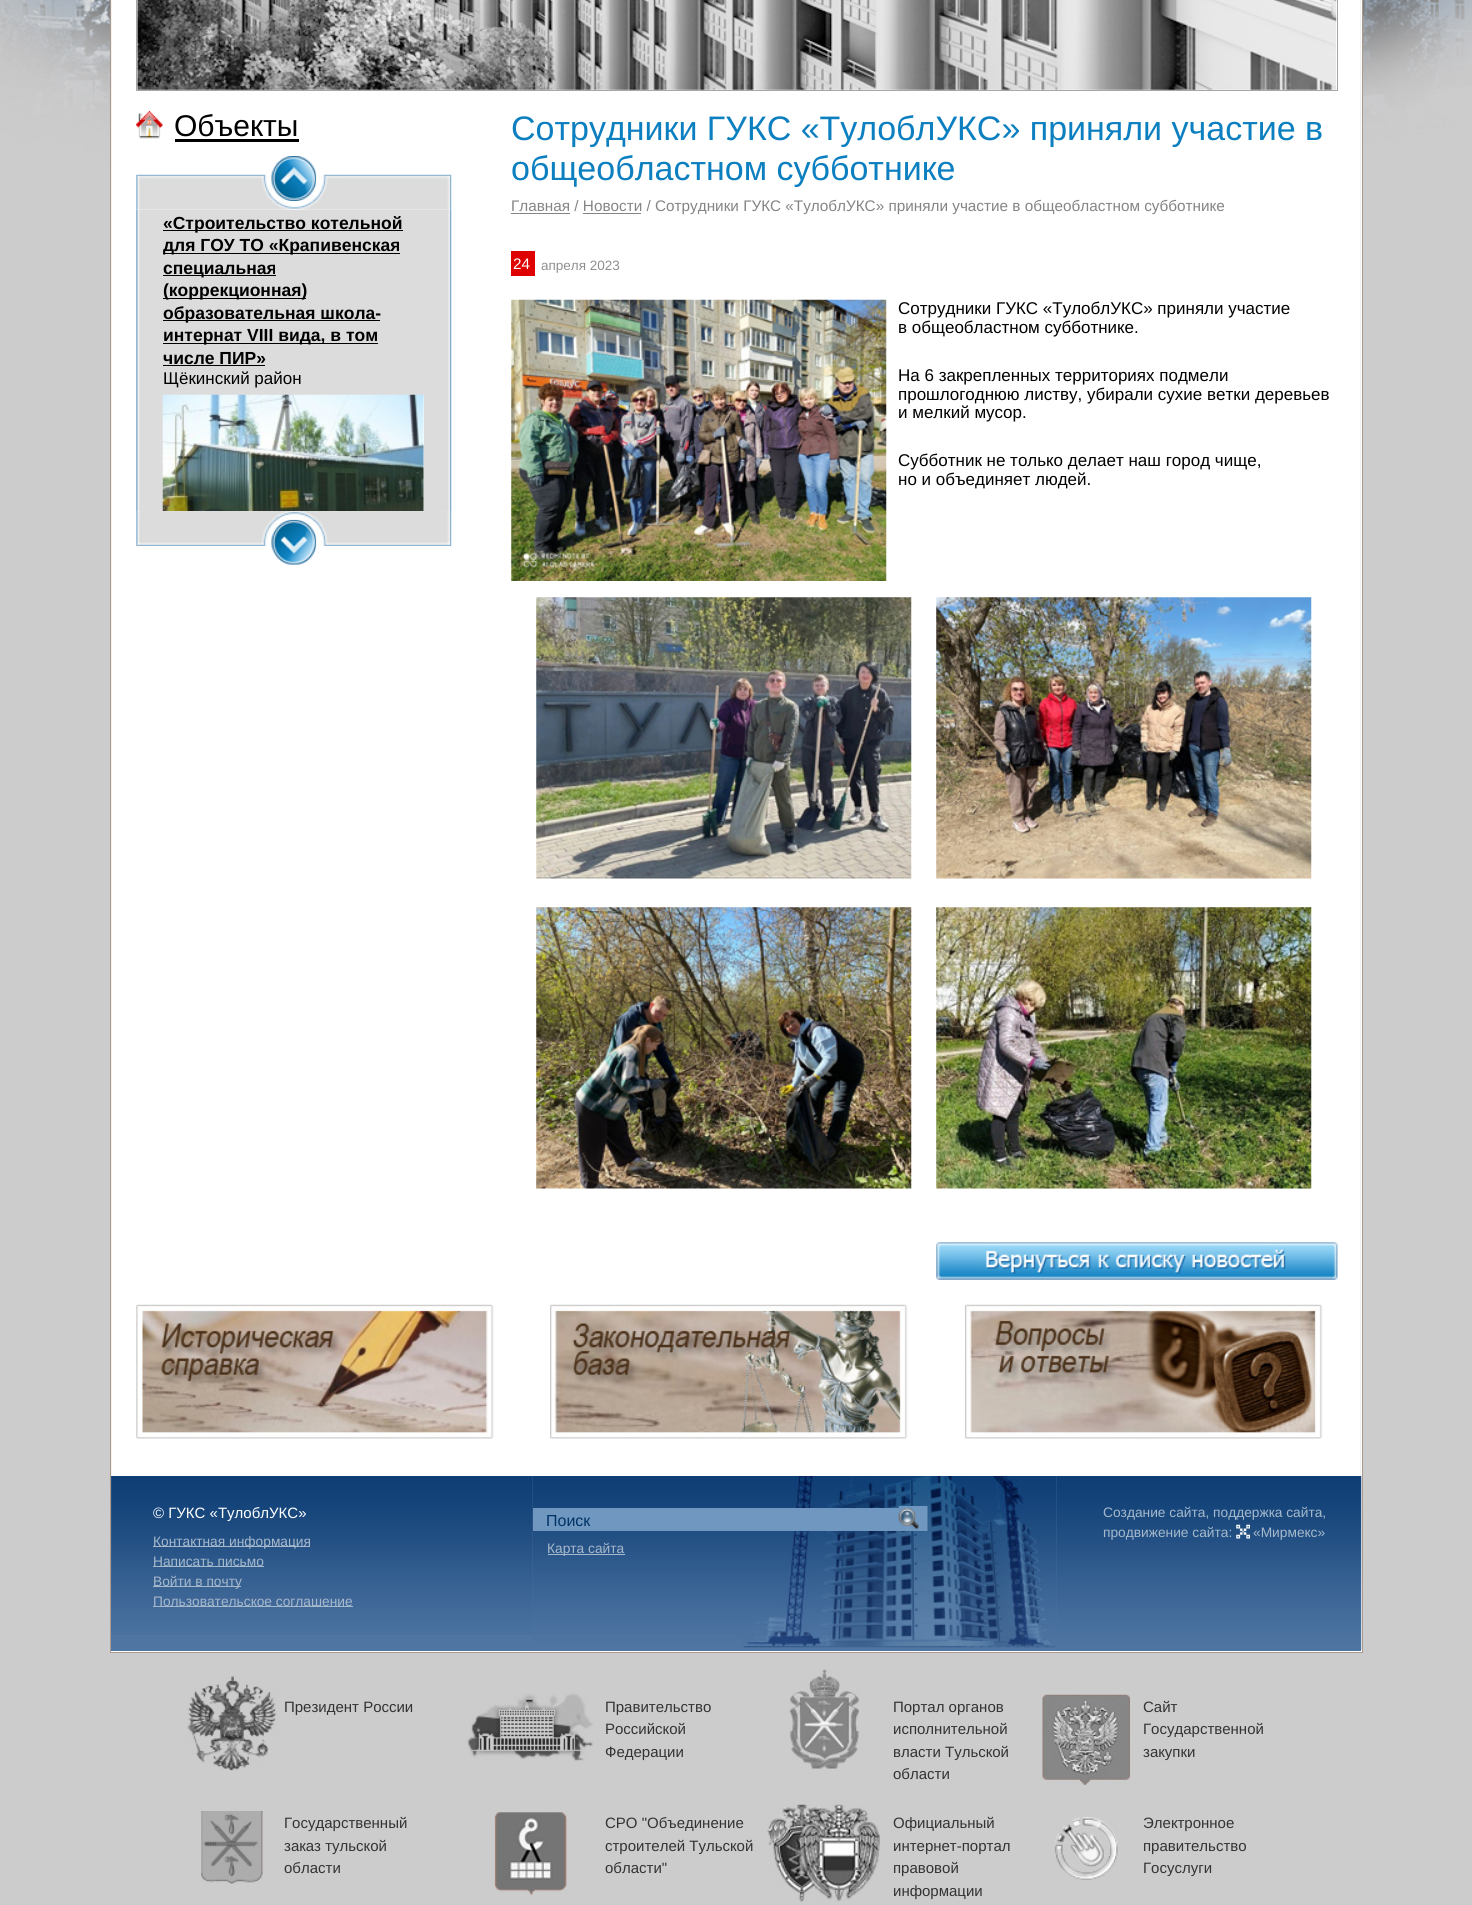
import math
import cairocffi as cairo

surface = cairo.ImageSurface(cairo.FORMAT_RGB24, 1472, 1905)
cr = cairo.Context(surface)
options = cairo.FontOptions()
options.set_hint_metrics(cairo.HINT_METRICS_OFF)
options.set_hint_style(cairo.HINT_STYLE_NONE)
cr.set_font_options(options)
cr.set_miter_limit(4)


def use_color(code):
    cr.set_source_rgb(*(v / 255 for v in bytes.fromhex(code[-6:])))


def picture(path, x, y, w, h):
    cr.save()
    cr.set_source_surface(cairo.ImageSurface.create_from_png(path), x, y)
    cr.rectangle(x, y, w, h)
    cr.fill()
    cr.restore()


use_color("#cccccc")
cr.paint()
picture("img1.png", 0, 0, 1472, 237)
use_color("#ffffff")
cr.rectangle(110.5, -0.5, 1252, 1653)
cr.fill_preserve()
use_color("#aa9a8d")
cr.set_line_width(1)
cr.stroke()
use_color("#f4f2f0")
cr.rectangle(1360, 0, 1, 1476)
cr.fill()
cr.rectangle(111, 0, 1, 1476)
cr.fill()
cr.rectangle(136.5, -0.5, 1201, 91)
use_color("#a6a6a6")
cr.stroke()
picture("img2.png", 137, 0, 1200, 90)
picture("img3.png", 136, 111, 27, 28)
cr.select_font_face("Liberation Sans")
cr.set_font_size(30)
use_color("#000000")
cr.move_to(174, 136)
cr.show_text("Объекты")
cr.rectangle(175, 139, 124, 3)
cr.fill()
picture("img4.png", 136, 174, 316, 36)
picture("img5.png", 271, 156, 46, 45)
picture("img6.png", 136, 209, 4, 302)
use_color("#dcdcdc")
cr.rectangle(140, 210, 308, 301)
cr.fill()
use_color("#000000")
cr.rectangle(163, 230, 240, 1)
cr.fill()
cr.select_font_face("Liberation Sans", cairo.FONT_SLANT_NORMAL, cairo.FONT_WEIGHT_BOLD)
cr.set_font_size(17.5)
cr.move_to(163, 229)
cr.show_text("«Строительство котельной")
cr.rectangle(163, 253, 237, 1)
cr.fill()
cr.save()
cr.rectangle(163, 210, 261, 301)
cr.clip()
cr.move_to(163, 251)
cr.show_text("для ГОУ ТО «Крапивенская")
cr.restore()
cr.rectangle(163, 275, 113, 1)
cr.fill()
cr.move_to(163, 274)
cr.show_text("специальная")
cr.rectangle(163, 298, 143, 1)
cr.fill()
cr.move_to(163, 296)
cr.show_text("(коррекционная)")
cr.rectangle(163, 320, 217, 1)
cr.fill()
cr.move_to(163, 319)
cr.show_text("образовательная школа-")
cr.rectangle(163, 343, 215, 1)
cr.fill()
cr.move_to(163, 341)
cr.show_text("интернат VIII вида, в том")
cr.move_to(163, 364)
cr.show_text("числе ПИР»")
cr.rectangle(163, 365, 102, 1)
cr.fill()
cr.select_font_face("Liberation Sans")
cr.set_font_size(17)
cr.move_to(163, 384)
cr.show_text("Щёкинский район")
use_color("#ffffff")
cr.rectangle(423, 395, 1, 116)
cr.fill()
picture("img7.png", 162, 394, 262, 117)
picture("img8.png", 448, 209, 4, 302)
picture("img9.png", 136, 511, 316, 35)
picture("img10.png", 271, 519, 46, 46)
cr.set_font_size(34)
use_color("#0c7fc0")
cr.move_to(511, 140)
cr.show_text("Сотрудники ГУКС «ТулоблУКС» приняли участие в")
cr.move_to(511, 180)
cr.show_text("общеобластном субботнике")
use_color("#848484")
cr.rectangle(511, 213, 59, 1)
cr.fill()
cr.set_font_size(15.3)
cr.move_to(511, 211)
cr.show_text("Главная / Новости / Сотрудники ГУКС «ТулоблУКС» приняли участие в общеобластном субботнике")
cr.rectangle(583, 213, 58, 1)
cr.fill()
use_color("#de0100")
cr.rectangle(511, 251, 24, 25)
cr.fill()
use_color("#ffffff")
cr.move_to(513, 269)
cr.show_text("24")
cr.set_font_size(13.5)
use_color("#8f8f8f")
cr.move_to(541, 270)
cr.show_text("апреля 2023")
picture("img11.png", 511, 299, 376, 282)
cr.set_font_size(17)
use_color("#000000")
cr.move_to(898, 314)
cr.show_text("Сотрудники ГУКС «ТулоблУКС» приняли участие")
cr.move_to(898, 333)
cr.show_text("в общеобластном субботнике.")
cr.move_to(898, 381)
cr.show_text("На 6 закрепленных территориях подмели")
cr.move_to(898, 400)
cr.show_text("прошлогоднюю листву, убирали сухие ветки деревьев")
cr.move_to(898, 418)
cr.show_text("и мелкий мусор.")
cr.move_to(898, 466)
cr.show_text("Субботник не только делает наш город чище,")
cr.move_to(898, 485)
cr.show_text("но и объединяет людей.")
picture("img12.png", 536, 597, 376, 282)
picture("img13.png", 936, 597, 376, 282)
picture("img14.png", 536, 907, 376, 282)
picture("img15.png", 936, 907, 376, 282)
picture("img16.png", 936, 1242, 402, 38)
picture("img17.png", 136, 1304, 358, 135)
picture("img18.png", 550, 1304, 358, 135)
picture("img19.png", 965, 1304, 358, 135)
use_color("#4f76a3")
cr.rectangle(111, 1476, 1250, 175)
cr.fill()
picture("img20.png", 111, 1476, 422, 159)
cr.set_font_size(15)
use_color("#ffffff")
cr.move_to(153, 1518)
cr.show_text("© ГУКС «ТулоблУКС»")
use_color("#a6b9cc")
cr.rectangle(153, 1546, 157, 1)
cr.fill()
cr.set_font_size(13.75)
cr.move_to(153, 1546)
cr.show_text("Контактная информация")
cr.rectangle(153, 1566, 111, 1)
cr.fill()
cr.move_to(153, 1566)
cr.show_text("Написать письмо")
cr.rectangle(153, 1586, 88, 1)
cr.fill()
cr.move_to(153, 1586)
cr.show_text("Войти в почту")
cr.rectangle(153, 1606, 200, 1)
cr.fill()
cr.move_to(153, 1606)
cr.show_text("Пользовательское соглашение")
picture("img21.png", 532, 1476, 524, 174)
use_color("#7097bf")
cr.rectangle(533, 1508, 366, 23)
cr.fill()
cr.set_font_size(16)
use_color("#003366")
cr.move_to(546, 1526)
cr.show_text("Поиск")
picture("img22.png", 898, 1506, 30, 25)
use_color("#a6b9cc")
cr.rectangle(548, 1554, 77, 1)
cr.fill()
cr.set_font_size(13.75)
cr.move_to(547, 1553)
cr.show_text("Карта сайта")
picture("img23.png", 1056, 1476, 306, 174)
cr.move_to(1103, 1517)
cr.show_text("Создание сайта, поддержка сайта,")
cr.move_to(1103, 1537)
cr.show_text("продвижение сайта:")
picture("img24.png", 1236, 1524, 14, 15)
cr.move_to(1253, 1537)
cr.show_text("«Мирмекс»")
picture("img25.png", 187, 1676, 90, 95)
cr.set_font_size(15)
use_color("#333333")
cr.move_to(284, 1712)
cr.show_text("Президент России")
picture("img26.png", 467, 1693, 126, 68)
cr.move_to(605, 1712)
cr.show_text("Правительство")
cr.move_to(605, 1734)
cr.show_text("Российской")
cr.move_to(605, 1757)
cr.show_text("Федерации")
picture("img27.png", 790, 1669, 69, 100)
cr.move_to(893, 1712)
cr.show_text("Портал органов")
cr.move_to(893, 1734)
cr.show_text("исполнительной")
cr.move_to(893, 1757)
cr.show_text("власти Тульской")
cr.move_to(893, 1779)
cr.show_text("области")
picture("img28.png", 1042, 1694, 88, 91)
cr.move_to(1143, 1712)
cr.show_text("Сайт")
cr.move_to(1143, 1734)
cr.show_text("Государственной")
cr.move_to(1143, 1757)
cr.show_text("закупки")
picture("img29.png", 201, 1811, 62, 73)
cr.move_to(284, 1828)
cr.show_text("Государственный")
cr.move_to(284, 1851)
cr.show_text("заказ тульской")
cr.move_to(284, 1873)
cr.show_text("области")
picture("img30.png", 494, 1811, 73, 84)
cr.move_to(605, 1828)
cr.show_text("СРО \"Объединение")
cr.move_to(605, 1851)
cr.show_text("строителей Тульской")
cr.move_to(605, 1873)
cr.show_text("области\"")
picture("img31.png", 767, 1804, 113, 98)
cr.move_to(893, 1828)
cr.show_text("Официальный")
cr.move_to(893, 1851)
cr.show_text("интернет-портал")
cr.move_to(893, 1873)
cr.show_text("правовой")
cr.move_to(893, 1896)
cr.show_text("информации")
picture("img32.png", 1054, 1817, 64, 63)
cr.move_to(1143, 1828)
cr.show_text("Электронное")
cr.move_to(1143, 1851)
cr.show_text("правительство")
cr.move_to(1143, 1873)
cr.show_text("Госуслуги")
surface.write_to_png("result.png")
